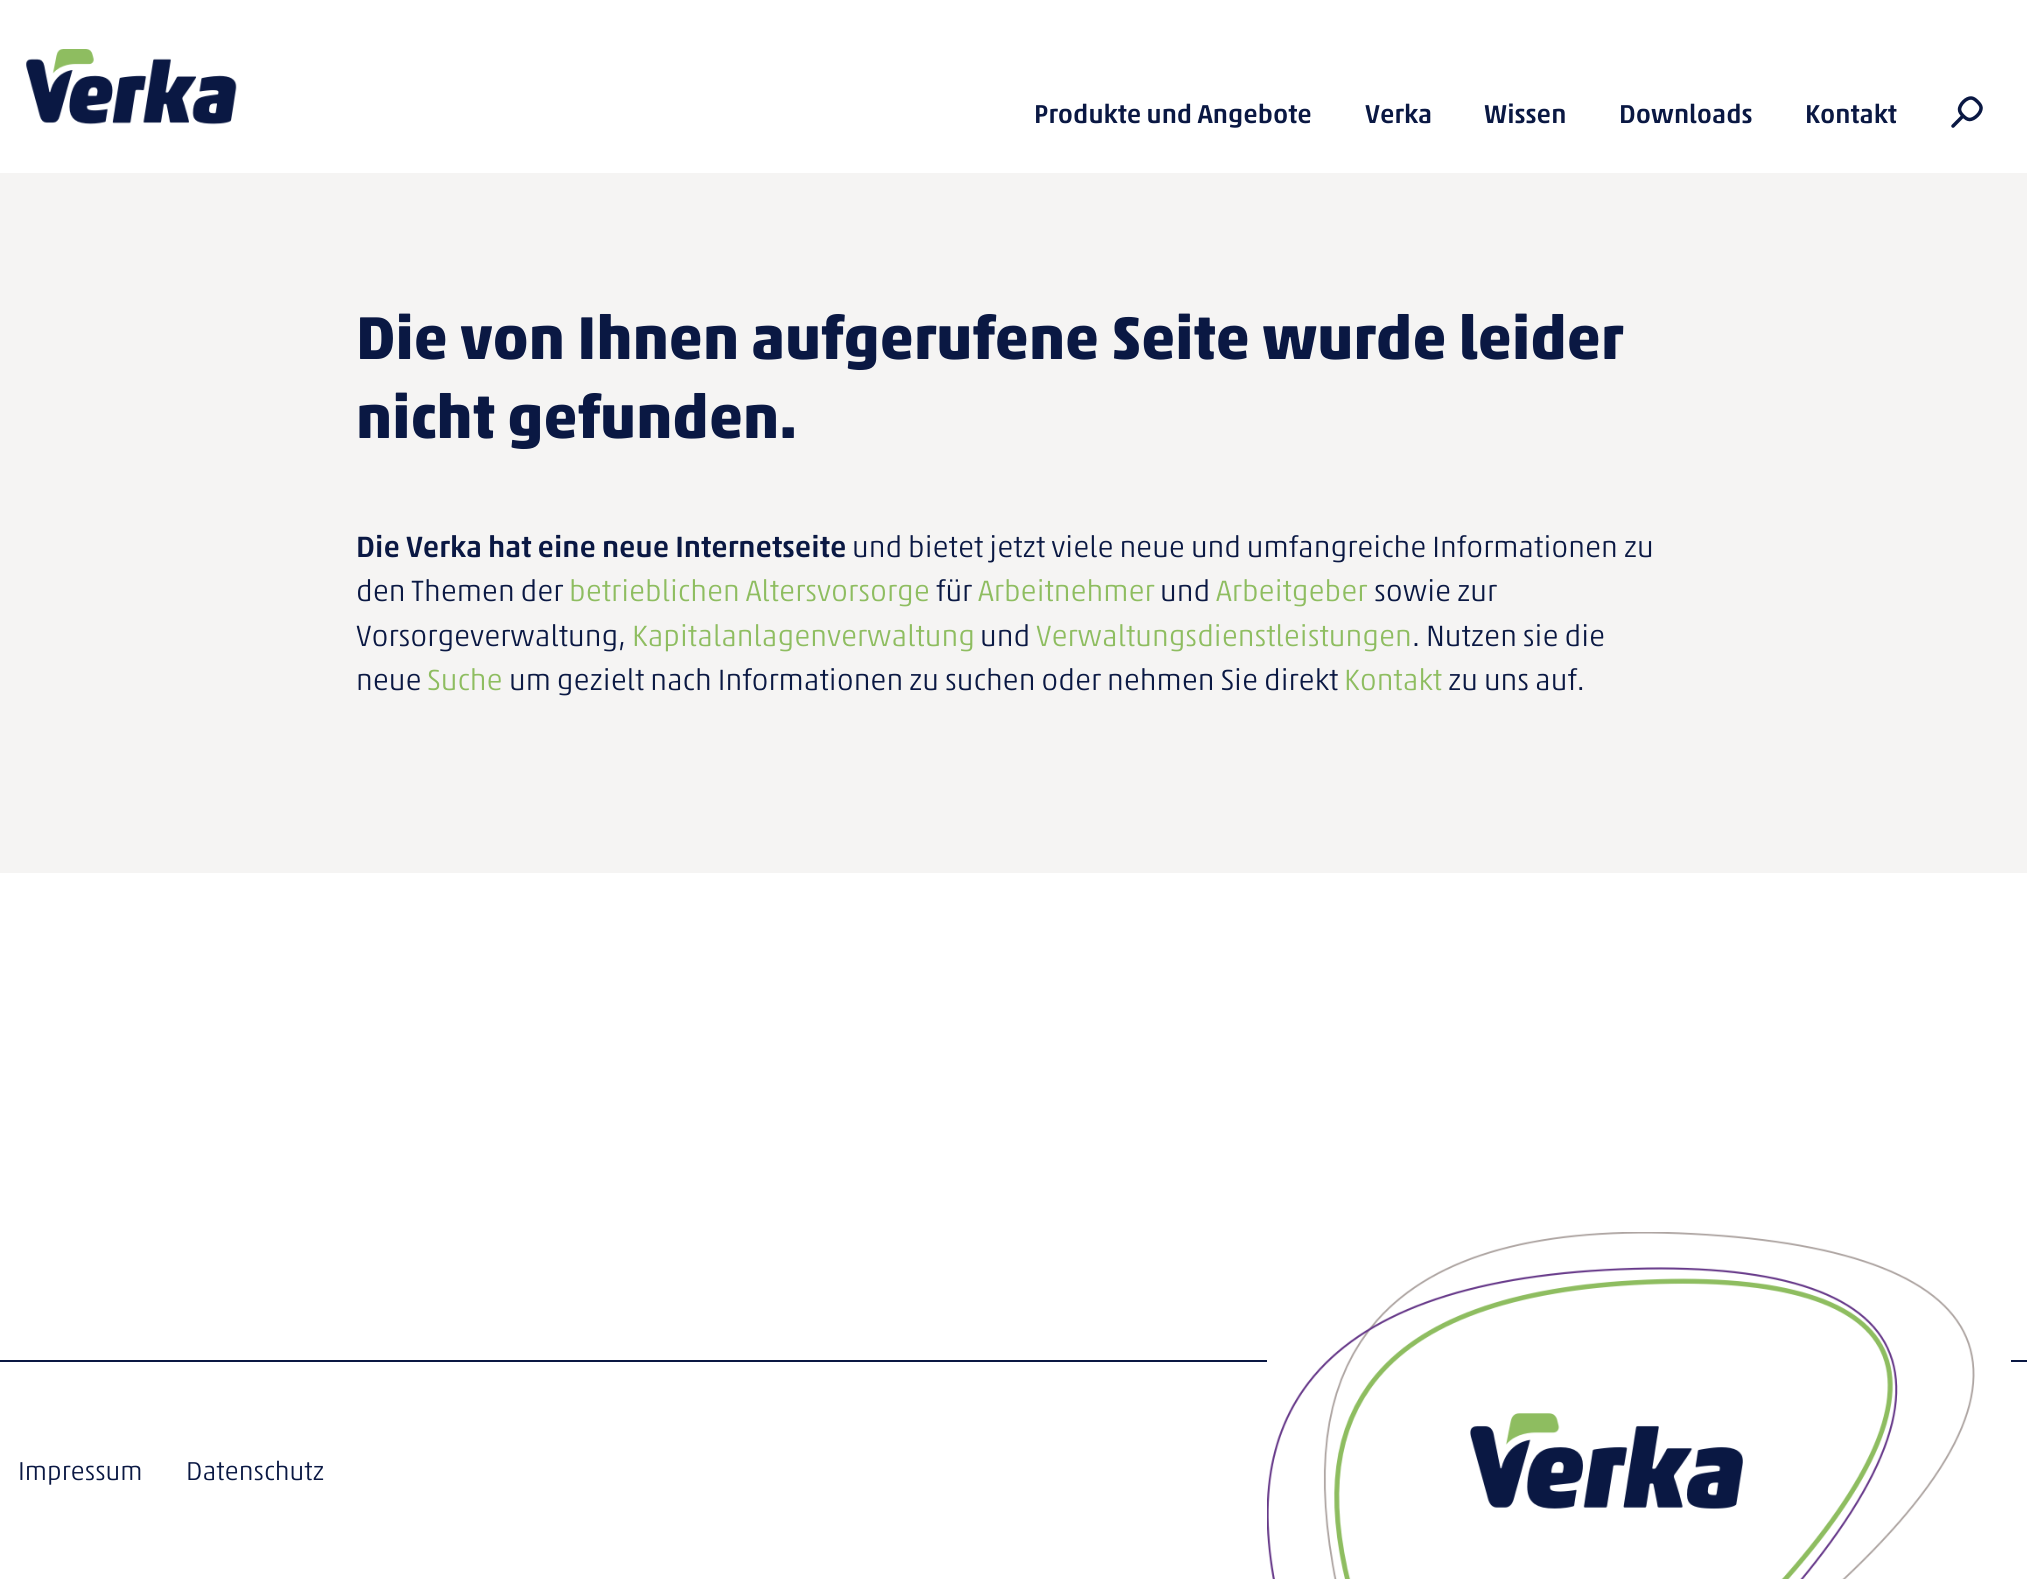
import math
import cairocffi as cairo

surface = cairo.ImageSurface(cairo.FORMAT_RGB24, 2027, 1579)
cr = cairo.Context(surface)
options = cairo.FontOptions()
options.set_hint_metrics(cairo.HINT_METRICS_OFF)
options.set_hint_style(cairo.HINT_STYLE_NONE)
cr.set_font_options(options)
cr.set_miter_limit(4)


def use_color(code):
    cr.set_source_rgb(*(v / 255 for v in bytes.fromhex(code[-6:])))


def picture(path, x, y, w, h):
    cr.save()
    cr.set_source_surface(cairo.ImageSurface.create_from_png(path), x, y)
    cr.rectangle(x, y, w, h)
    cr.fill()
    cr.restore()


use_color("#ffffff")
cr.paint()
picture("img1.png", 26, 49, 211, 76)
cr.select_font_face("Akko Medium")
cr.set_font_size(26.25)
use_color("#0a1843")
cr.move_to(1034, 123)
cr.show_text("Produkte und Angebote")
cr.move_to(1365, 123)
cr.show_text("Verka")
cr.move_to(1484, 123)
cr.show_text("Wissen")
cr.move_to(1619, 123)
cr.show_text("Downloads")
cr.move_to(1805, 123)
cr.show_text("Kontakt")
picture("img2.png", 1951, 96, 32, 32)
use_color("#f5f4f3")
cr.rectangle(0, 173, 2027, 700)
cr.fill()
cr.select_font_face("Akko", cairo.FONT_SLANT_NORMAL, cairo.FONT_WEIGHT_BOLD)
cr.set_font_size(61.25)
use_color("#0a1843")
cr.move_to(356, 359)
cr.show_text("Die von Ihnen aufgerufene Seite wurde leider")
cr.move_to(356, 438)
cr.show_text("nicht gefunden.")
cr.select_font_face("Akko Medium")
cr.set_font_size(29.75)
cr.move_to(356, 557)
cr.show_text("Die Verka hat eine neue Internetseite")
cr.select_font_face("Akko Light")
cr.move_to(852, 557)
cr.show_text("und bietet jetzt viele neue und umfangreiche Informationen zu")
cr.move_to(356, 601)
cr.show_text("den Themen der")
use_color("#8ebd60")
cr.move_to(569, 601)
cr.show_text("betrieblichen Altersvorsorge")
use_color("#0a1843")
cr.move_to(936, 601)
cr.show_text("für")
use_color("#8ebd60")
cr.move_to(978, 601)
cr.show_text("Arbeitnehmer")
use_color("#0a1843")
cr.move_to(1160, 601)
cr.show_text("und")
use_color("#8ebd60")
cr.move_to(1216, 601)
cr.show_text("Arbeitgeber")
use_color("#0a1843")
cr.move_to(1374, 601)
cr.show_text("sowie zur")
cr.move_to(356, 646)
cr.show_text("Vorsorgeverwaltung,")
use_color("#8ebd60")
cr.move_to(632, 646)
cr.show_text("Kapitalanlagenverwaltung")
use_color("#0a1843")
cr.move_to(980, 646)
cr.show_text("und")
use_color("#8ebd60")
cr.move_to(1036, 646)
cr.show_text("Verwaltungsdienstleistungen")
use_color("#0a1843")
cr.move_to(1412, 646)
cr.show_text(". Nutzen sie die")
cr.move_to(356, 690)
cr.show_text("neue")
use_color("#8ebd60")
cr.move_to(427, 690)
cr.show_text("Suche")
use_color("#0a1843")
cr.move_to(509, 690)
cr.show_text("um gezielt nach Informationen zu suchen oder nehmen Sie direkt")
use_color("#8ebd60")
cr.move_to(1344, 690)
cr.show_text("Kontakt")
use_color("#0a1843")
cr.move_to(1448, 690)
cr.show_text("zu uns auf.")
cr.rectangle(0, 1360, 2027, 2)
cr.fill()
cr.set_font_size(26.25)
cr.move_to(18, 1480)
cr.show_text("Impressum")
cr.move_to(186, 1480)
cr.show_text("Datenschutz")
use_color("#ffffff")
cr.rectangle(1267, 1360, 744, 2)
cr.fill()
picture("img3.png", 1267, 1232, 708, 347)
surface.write_to_png("result.png")
